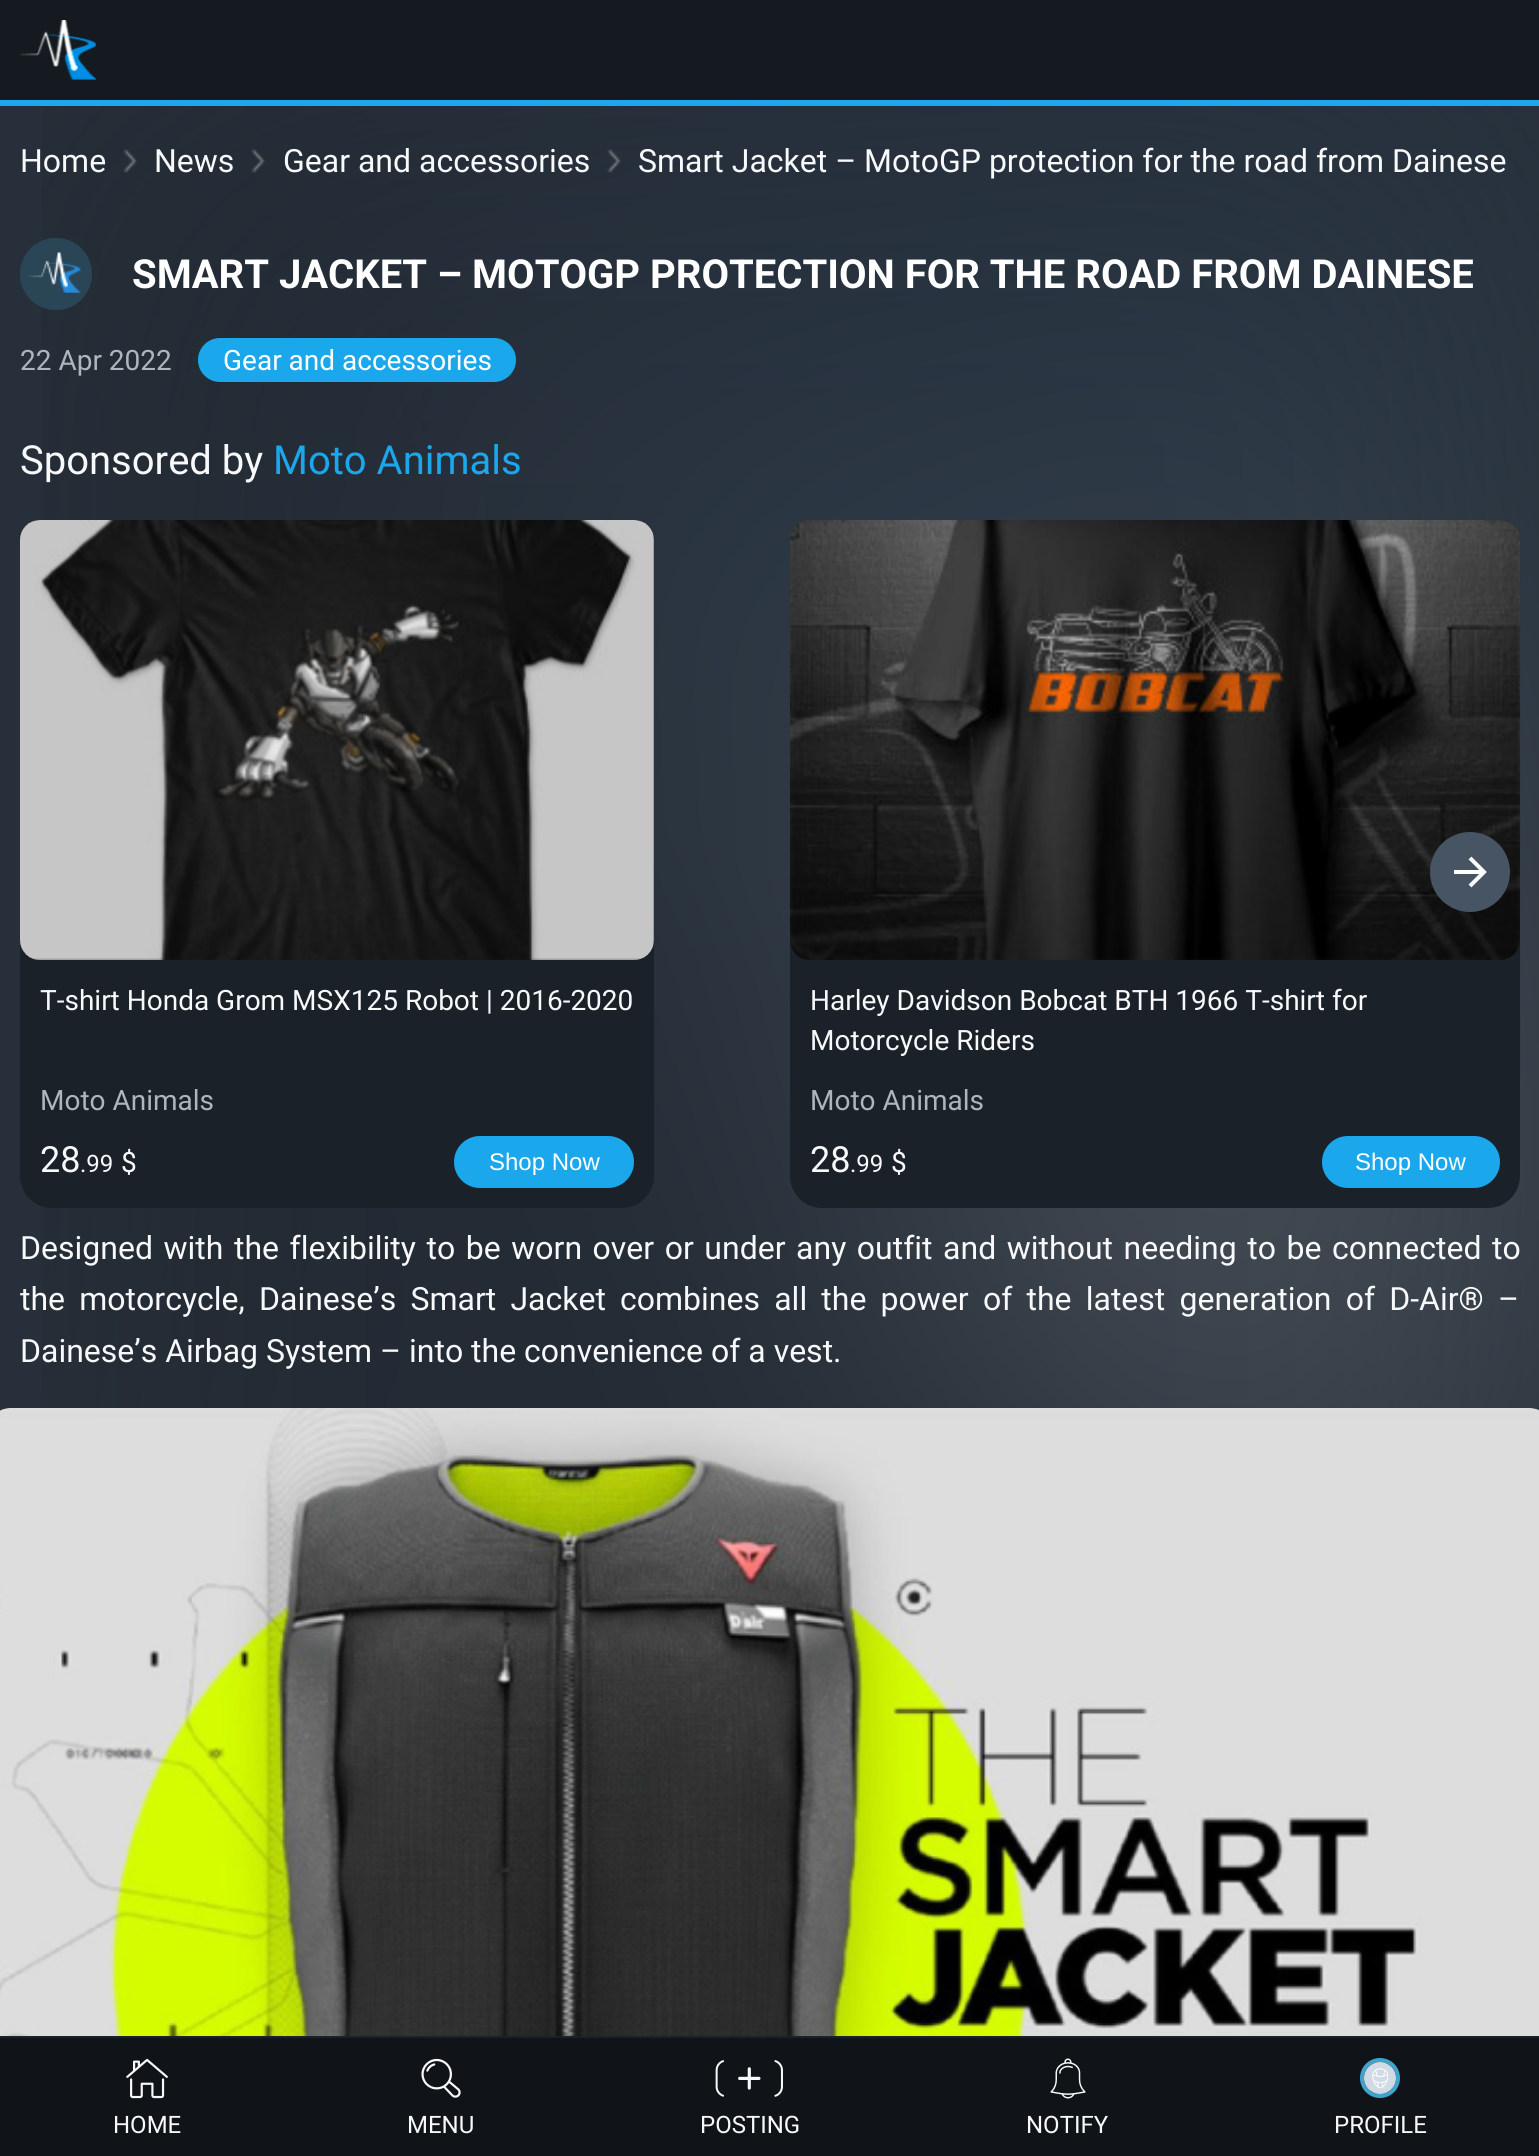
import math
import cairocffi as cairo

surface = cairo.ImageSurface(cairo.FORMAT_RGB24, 1539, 2156)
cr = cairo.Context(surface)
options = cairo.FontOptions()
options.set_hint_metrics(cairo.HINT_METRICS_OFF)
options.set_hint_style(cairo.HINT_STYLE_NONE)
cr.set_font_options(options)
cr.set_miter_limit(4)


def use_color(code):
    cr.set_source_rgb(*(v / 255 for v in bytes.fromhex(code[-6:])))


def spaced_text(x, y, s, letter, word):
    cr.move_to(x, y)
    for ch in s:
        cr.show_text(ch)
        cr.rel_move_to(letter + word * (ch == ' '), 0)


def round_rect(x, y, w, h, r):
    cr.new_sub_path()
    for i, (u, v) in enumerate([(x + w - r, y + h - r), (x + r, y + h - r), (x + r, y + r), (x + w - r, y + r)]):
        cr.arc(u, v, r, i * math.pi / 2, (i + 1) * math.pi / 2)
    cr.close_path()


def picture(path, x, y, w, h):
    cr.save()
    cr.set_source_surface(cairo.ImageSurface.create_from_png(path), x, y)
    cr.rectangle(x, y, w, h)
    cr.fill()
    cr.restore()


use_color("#27303a")
cr.paint()
picture("img1.png", 42, 106, 1497, 1305)
use_color("#1aa7ec")
cr.rectangle(0, 100, 1539, 6)
cr.fill()
use_color("#151a20")
cr.rectangle(0, 0, 1539, 100)
cr.fill()
picture("img2.png", 20, 20, 76, 60)
cr.select_font_face("Roboto")
cr.set_font_size(32)
use_color("#f8f9fa")
cr.move_to(20, 172)
cr.show_text("Home")
picture("img3.png", 123, 149, 14, 24)
cr.move_to(154, 172)
cr.show_text("News")
picture("img4.png", 251, 149, 14, 24)
cr.move_to(283, 172)
cr.show_text("Gear and accessories")
picture("img5.png", 607, 149, 14, 24)
cr.move_to(638, 172)
cr.show_text("Smart Jacket – MotoGP protection for the road from Dainese")
use_color("#2a4556")
cr.new_path()
cr.arc(56, 274, 36, 0, 2 * math.pi)
cr.fill()
picture("img6.png", 20, 238, 72, 72)
cr.select_font_face("Roboto", cairo.FONT_SLANT_NORMAL, cairo.FONT_WEIGHT_BOLD)
cr.set_font_size(40)
use_color("#ffffff")
cr.move_to(132, 288)
cr.show_text("SMART JACKET – MOTOGP PROTECTION FOR THE ROAD FROM DAINESE")
cr.select_font_face("Roboto")
cr.set_font_size(28)
use_color("#adb5bd")
cr.move_to(20, 370)
cr.show_text("22 Apr 2022")
use_color("#1aa7ec")
round_rect(198, 338, 318, 44, 22)
cr.fill()
use_color("#ffffff")
cr.move_to(223, 370)
cr.show_text("Gear and accessories")
cr.set_font_size(40)
use_color("#f8f9fa")
cr.move_to(20, 474)
cr.show_text("Sponsored by")
use_color("#1aa7ec")
cr.move_to(273, 474)
cr.show_text("Moto Animals")
use_color("#1b2129")
round_rect(790, 520, 730, 688, 32)
cr.fill()
picture("img8.png", 790, 520, 730, 440)
use_color("#475463")
cr.arc(1470, 872, 40, 0, 2 * math.pi)
cr.fill()
cr.new_path()
cr.move_to(1454, 872)
cr.line_to(1482, 872)
cr.move_to(1470, 858)
cr.line_to(1484, 872)
cr.line_to(1470, 886)
use_color("#ffffff")
cr.set_line_width(4)
cr.stroke()
use_color("#1b2129")
round_rect(20, 520, 634, 688, 32)
cr.fill()
picture("img7.png", 20, 520, 634, 440)
cr.set_font_size(28)
use_color("#f8f9fa")
cr.move_to(40, 1010)
cr.show_text("T-shirt Honda Grom MSX125 Robot | 2016-2020")
use_color("#adb5bd")
cr.move_to(40, 1110)
cr.show_text("Moto Animals")
cr.set_font_size(36)
use_color("#f8f9fa")
cr.move_to(40, 1172)
cr.show_text("28")
cr.set_font_size(24)
cr.move_to(80, 1172)
cr.show_text(".99")
cr.set_font_size(28)
cr.move_to(121, 1172)
cr.show_text("$")
use_color("#1aa7ec")
round_rect(454, 1136, 180, 52, 26)
cr.fill()
cr.select_font_face("Liberation Sans")
cr.set_font_size(24)
use_color("#ffffff")
cr.move_to(489, 1170)
cr.show_text("Shop Now")
cr.select_font_face("Roboto")
cr.set_font_size(28)
use_color("#f8f9fa")
cr.move_to(810, 1010)
cr.show_text("Harley Davidson Bobcat BTH 1966 T-shirt for")
cr.move_to(810, 1050)
cr.show_text("Motorcycle Riders")
use_color("#adb5bd")
cr.move_to(810, 1110)
cr.show_text("Moto Animals")
cr.set_font_size(36)
use_color("#f8f9fa")
cr.move_to(810, 1172)
cr.show_text("28")
cr.set_font_size(24)
cr.move_to(850, 1172)
cr.show_text(".99")
cr.set_font_size(28)
cr.move_to(891, 1172)
cr.show_text("$")
use_color("#1aa7ec")
round_rect(1322, 1136, 178, 52, 26)
cr.fill()
cr.select_font_face("Liberation Sans")
cr.set_font_size(24)
use_color("#ffffff")
cr.move_to(1355, 1170)
cr.show_text("Shop Now")
cr.select_font_face("Roboto")
cr.set_font_size(32)
use_color("#f8f9fa")
spaced_text(20, 1259, "Designed with the flexibility to be worn over or under any outfit and without needing to be connected to", 0, 2.6)
spaced_text(20, 1310, "the motorcycle, Dainese’s Smart Jacket combines all the power of the latest generation of D-Air® –", 0, 6.25)
cr.move_to(20, 1362)
cr.show_text("Dainese’s Airbag System – into the convenience of a vest.")
picture("img9.png", 0, 1408, 1539, 628)
use_color("#101419")
cr.rectangle(0, 2038, 1539, 118)
cr.fill()
use_color("#1b2129")
cr.rectangle(0, 2036, 1539, 2)
cr.fill()
picture("img10.png", 126, 2058, 42, 41)
cr.set_font_size(24)
use_color("#f8f9fa")
cr.move_to(113, 2133)
cr.show_text("HOME")
picture("img11.png", 421, 2058, 40, 40)
cr.move_to(407, 2133)
cr.show_text("MENU")
picture("img12.png", 715, 2060, 68, 37)
cr.move_to(700, 2133)
cr.show_text("POSTING")
picture("img13.png", 1050, 2058, 36, 41)
cr.move_to(1026, 2133)
cr.show_text("NOTIFY")
cr.new_path()
cr.arc(1380, 2078, 18, 0, 2 * math.pi)
use_color("#3ea6cc")
cr.stroke()
picture("img14.png", 1364, 2062, 32, 32)
use_color("#f8f9fa")
cr.move_to(1334, 2133)
cr.show_text("PROFILE")
surface.write_to_png("result.png")
